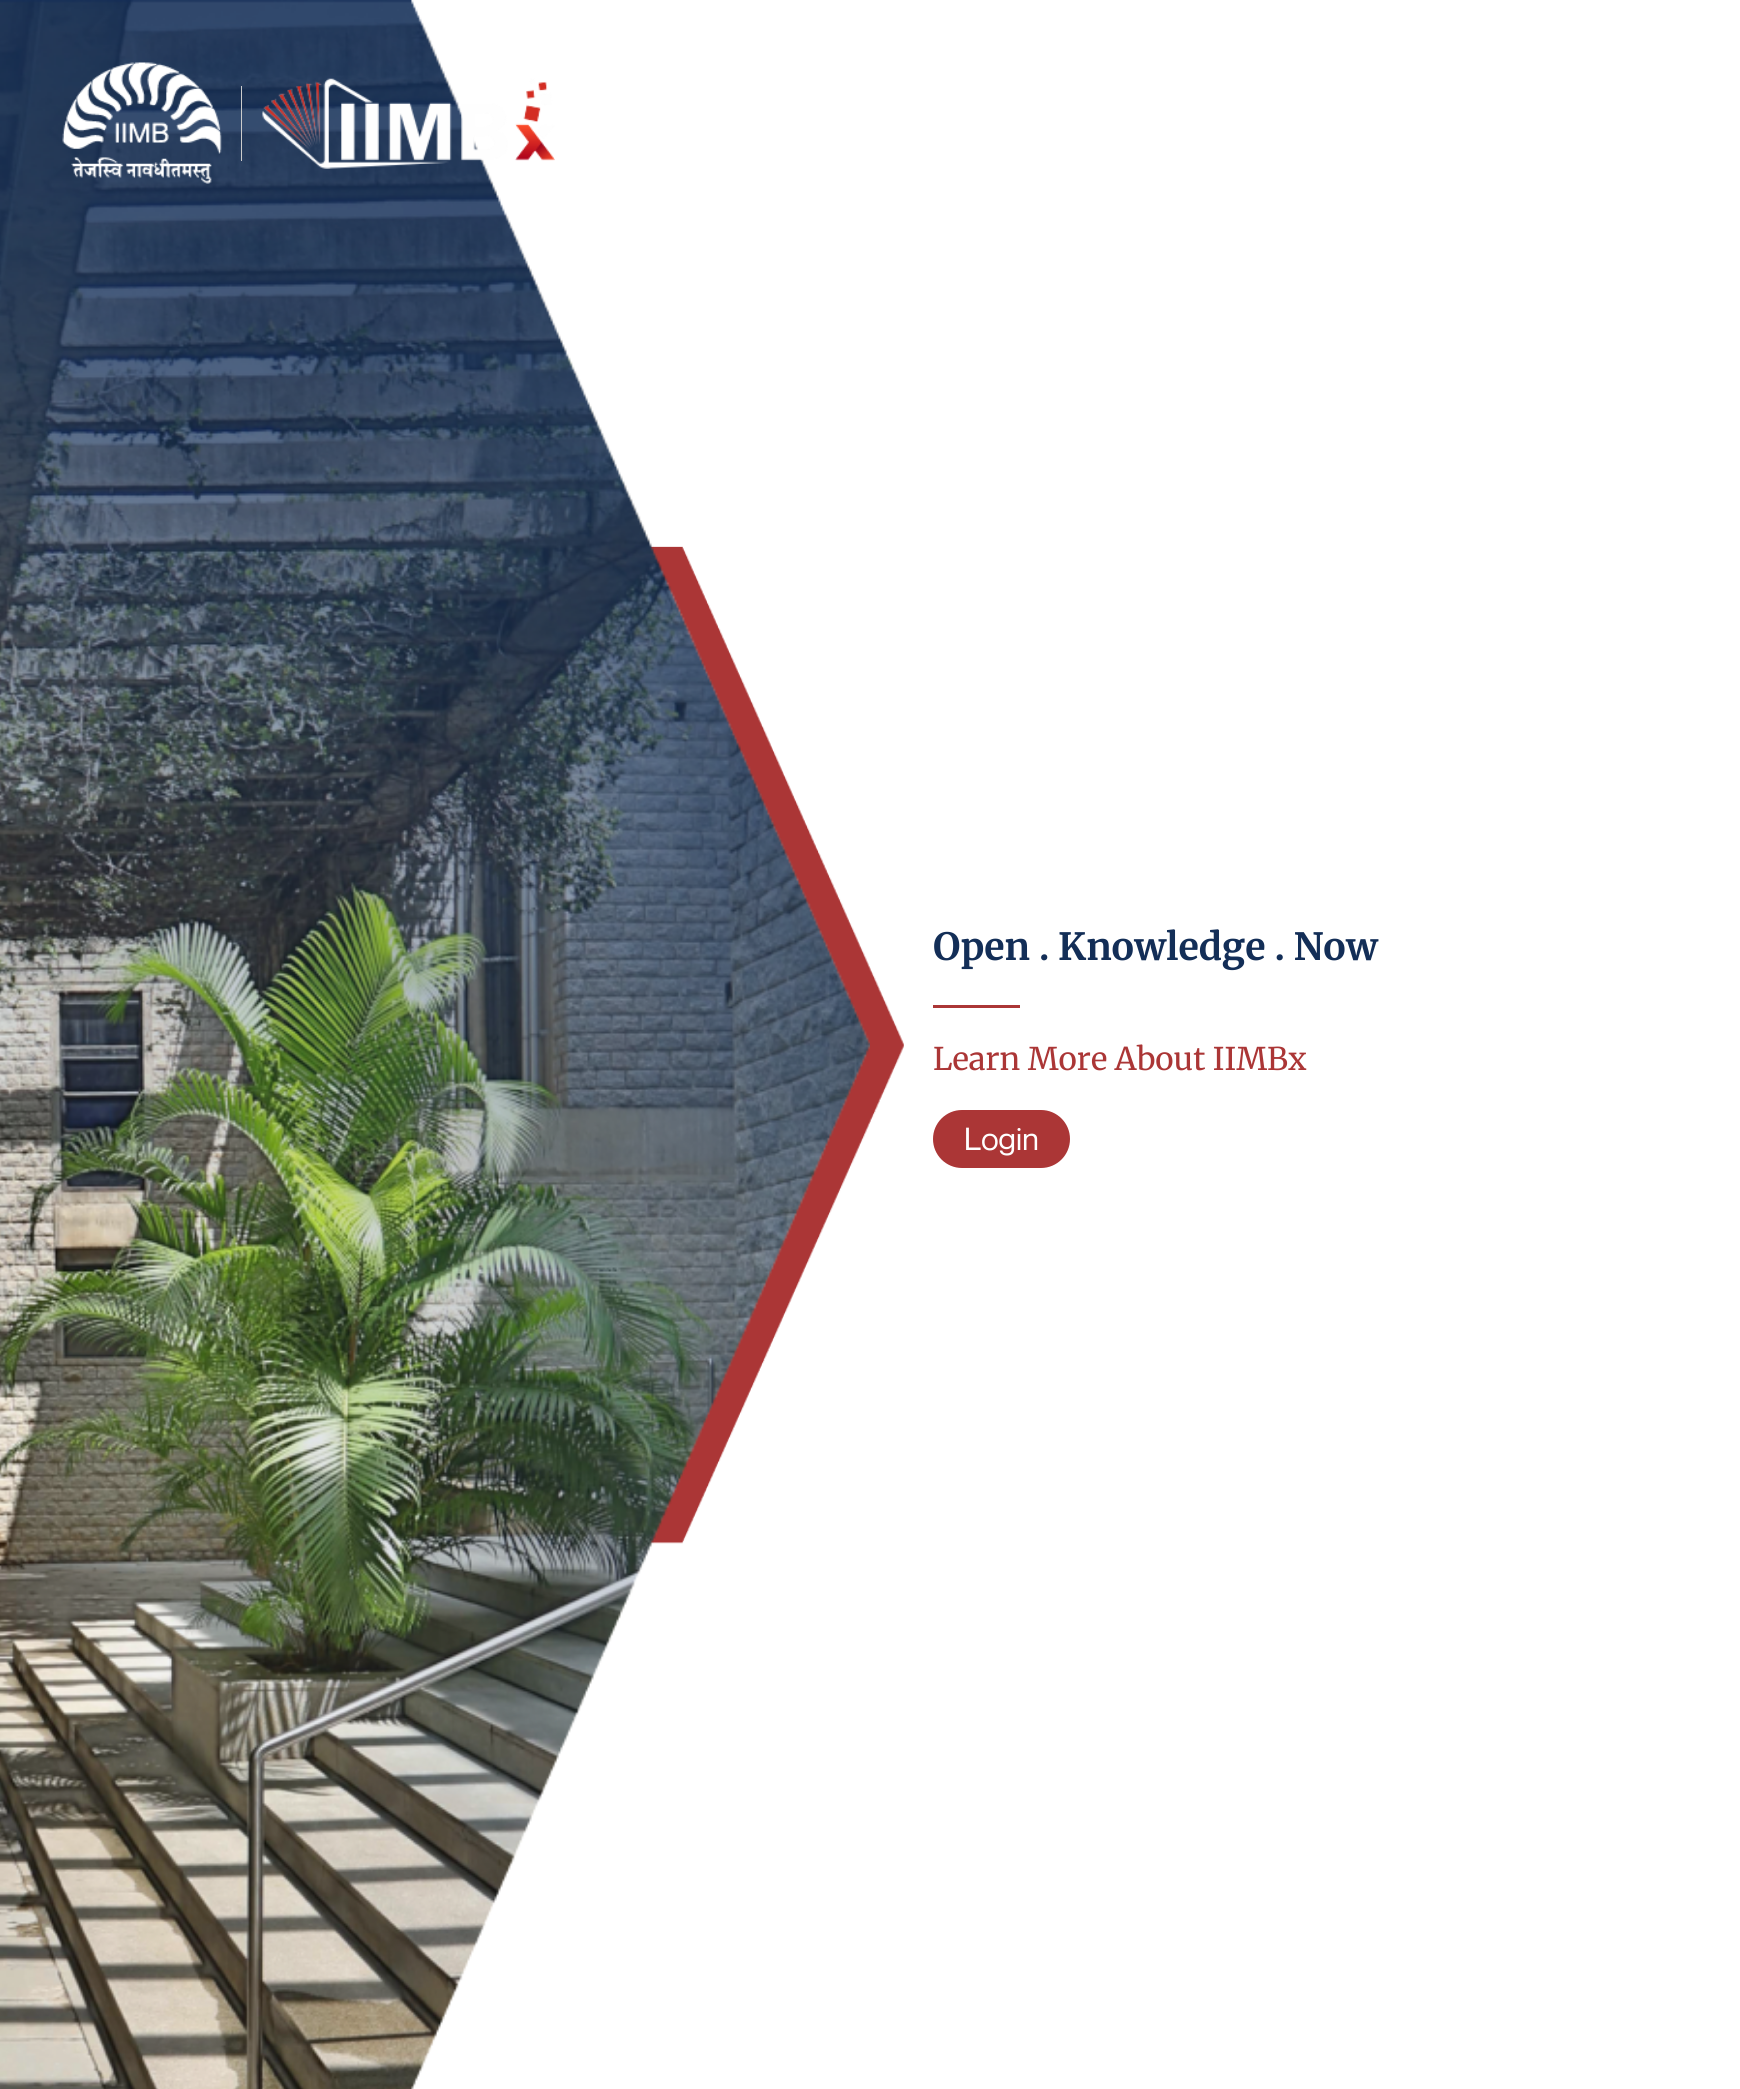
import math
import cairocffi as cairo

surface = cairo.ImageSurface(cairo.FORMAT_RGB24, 1740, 2089)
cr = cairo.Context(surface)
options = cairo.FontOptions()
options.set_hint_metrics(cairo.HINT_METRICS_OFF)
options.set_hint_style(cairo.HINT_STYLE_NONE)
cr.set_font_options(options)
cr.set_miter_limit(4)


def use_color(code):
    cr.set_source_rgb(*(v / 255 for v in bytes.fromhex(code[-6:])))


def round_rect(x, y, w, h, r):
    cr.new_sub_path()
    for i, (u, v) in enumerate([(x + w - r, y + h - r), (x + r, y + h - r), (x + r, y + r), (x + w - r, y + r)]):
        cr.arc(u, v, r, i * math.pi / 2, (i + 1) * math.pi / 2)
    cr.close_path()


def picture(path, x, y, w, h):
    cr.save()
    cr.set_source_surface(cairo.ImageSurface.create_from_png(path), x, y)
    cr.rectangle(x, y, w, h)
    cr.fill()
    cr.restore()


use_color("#ffffff")
cr.paint()
picture("img4.png", 649, 546, 255, 998)
picture("img1.png", 0, 0, 870, 2089)
picture("img2.png", 62, 62, 160, 122)
use_color("#cccccc")
cr.rectangle(241, 86, 1, 75)
cr.fill()
picture("img3.png", 262, 78, 293, 91)
cr.select_font_face("Merriweather", cairo.FONT_SLANT_NORMAL, cairo.FONT_WEIGHT_BOLD)
cr.set_font_size(37.5)
use_color("#132e57")
cr.move_to(933, 960)
cr.show_text("Open . Knowledge . Now")
use_color("#ab3636")
cr.rectangle(933, 1005, 87, 3)
cr.fill()
cr.select_font_face("Merriweather")
cr.set_font_size(31.25)
cr.move_to(933, 1070)
cr.show_text("Learn More About IIMBx")
round_rect(933, 1110, 137, 58, 29)
cr.fill()
cr.select_font_face("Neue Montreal")
use_color("#ffffff")
cr.move_to(964, 1150)
cr.show_text("Login")
surface.write_to_png("result.png")
